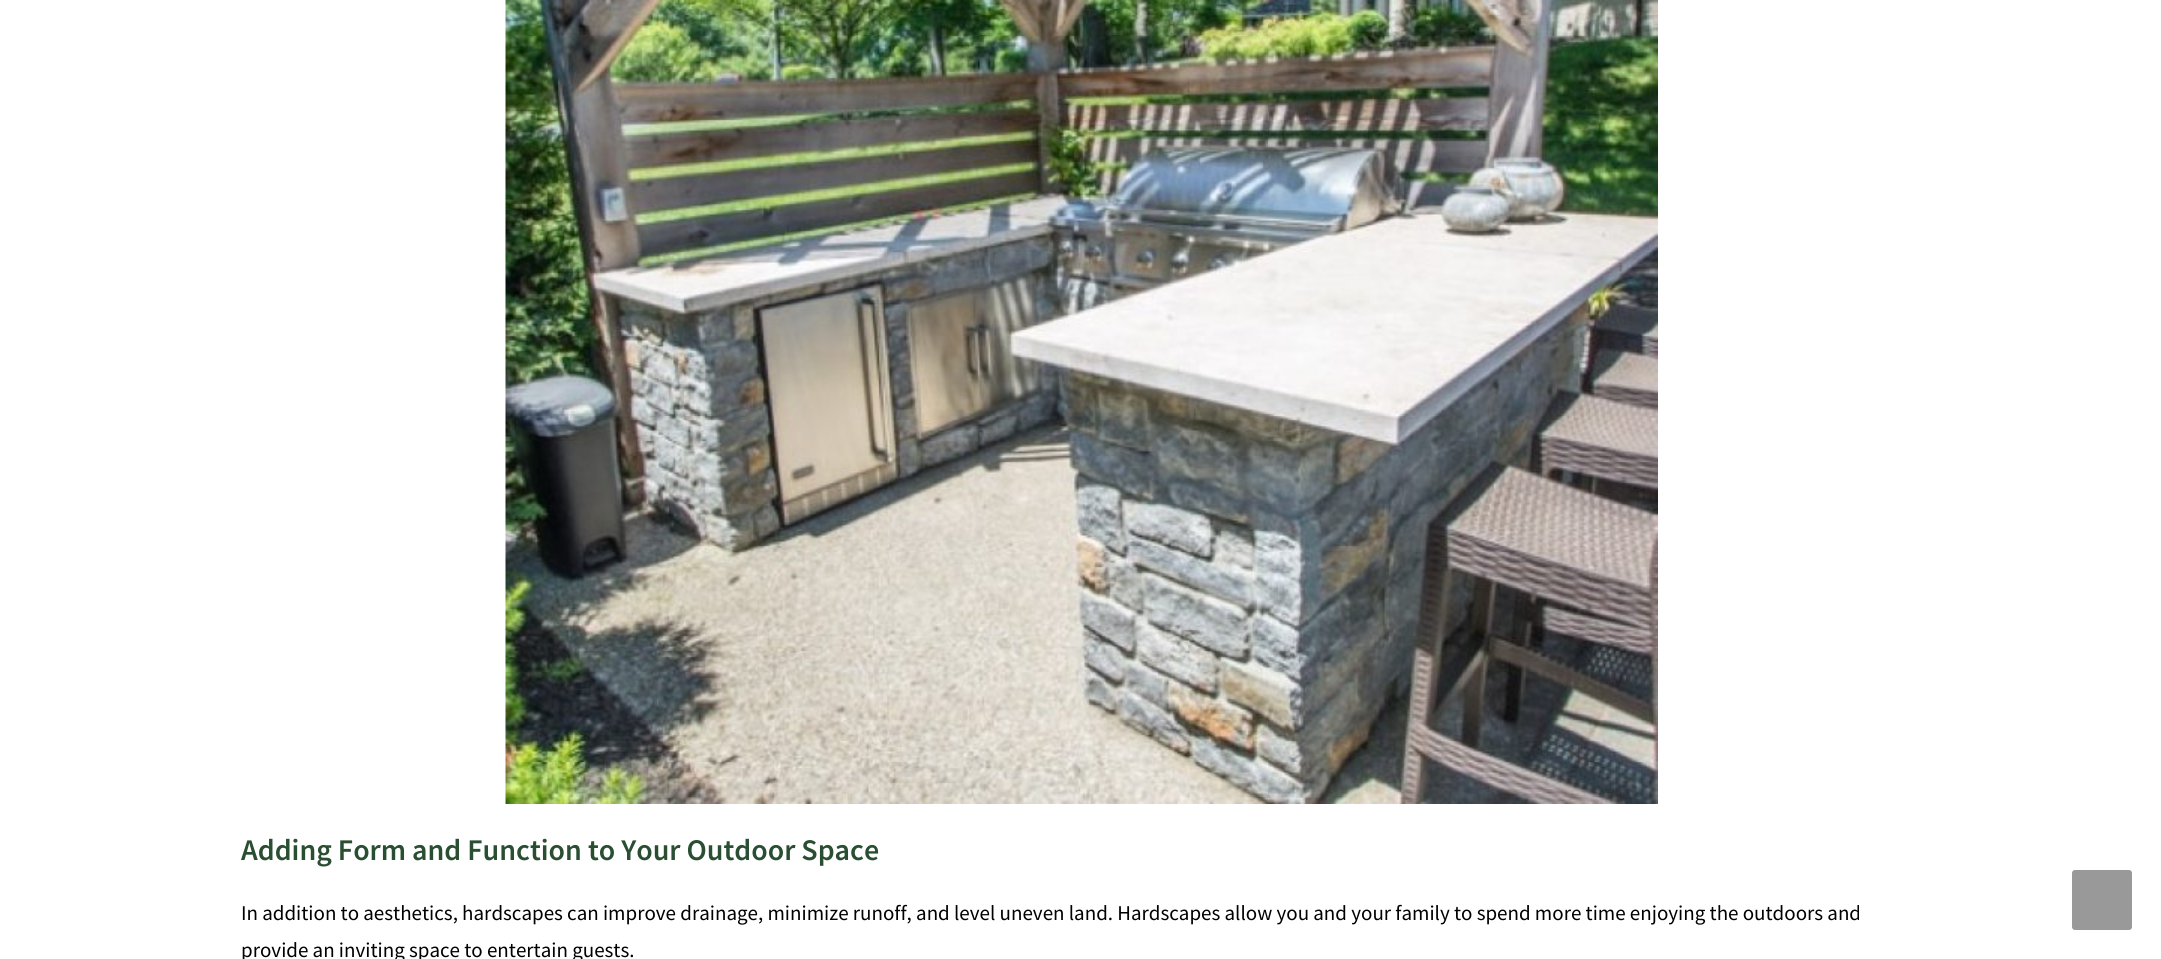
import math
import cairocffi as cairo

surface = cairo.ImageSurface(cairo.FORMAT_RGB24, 2161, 959)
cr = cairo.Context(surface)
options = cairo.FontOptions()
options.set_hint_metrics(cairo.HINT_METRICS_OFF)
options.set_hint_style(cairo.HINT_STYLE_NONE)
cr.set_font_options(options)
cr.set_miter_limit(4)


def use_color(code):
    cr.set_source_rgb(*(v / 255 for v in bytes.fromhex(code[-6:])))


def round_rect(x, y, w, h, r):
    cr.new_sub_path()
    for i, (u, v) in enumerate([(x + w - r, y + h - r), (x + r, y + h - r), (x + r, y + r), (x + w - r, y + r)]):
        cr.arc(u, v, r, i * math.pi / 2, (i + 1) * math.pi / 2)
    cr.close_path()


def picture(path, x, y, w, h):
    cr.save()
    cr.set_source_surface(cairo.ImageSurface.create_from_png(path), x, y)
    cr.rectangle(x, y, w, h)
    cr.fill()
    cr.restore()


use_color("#ffffff")
cr.paint()
picture("img1.png", 505, 0, 1153, 804)
cr.select_font_face("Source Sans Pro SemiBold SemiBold")
cr.set_font_size(30)
use_color("#294e31")
cr.move_to(241, 860)
cr.show_text("Adding Form and Function to Your Outdoor Space")
cr.select_font_face("Source Sans Pro")
cr.set_font_size(21)
use_color("#000000")
cr.move_to(241, 920)
cr.show_text("In addition to aesthetics, hardscapes can improve drainage, minimize runoff, and level uneven land. Hardscapes allow you and your family to spend more time enjoying the outdoors and")
cr.move_to(241, 957)
cr.show_text("provide an inviting space to entertain guests.")
use_color("#999999")
round_rect(2072, 870, 60, 60, 3)
cr.fill()
surface.write_to_png("result.png")
